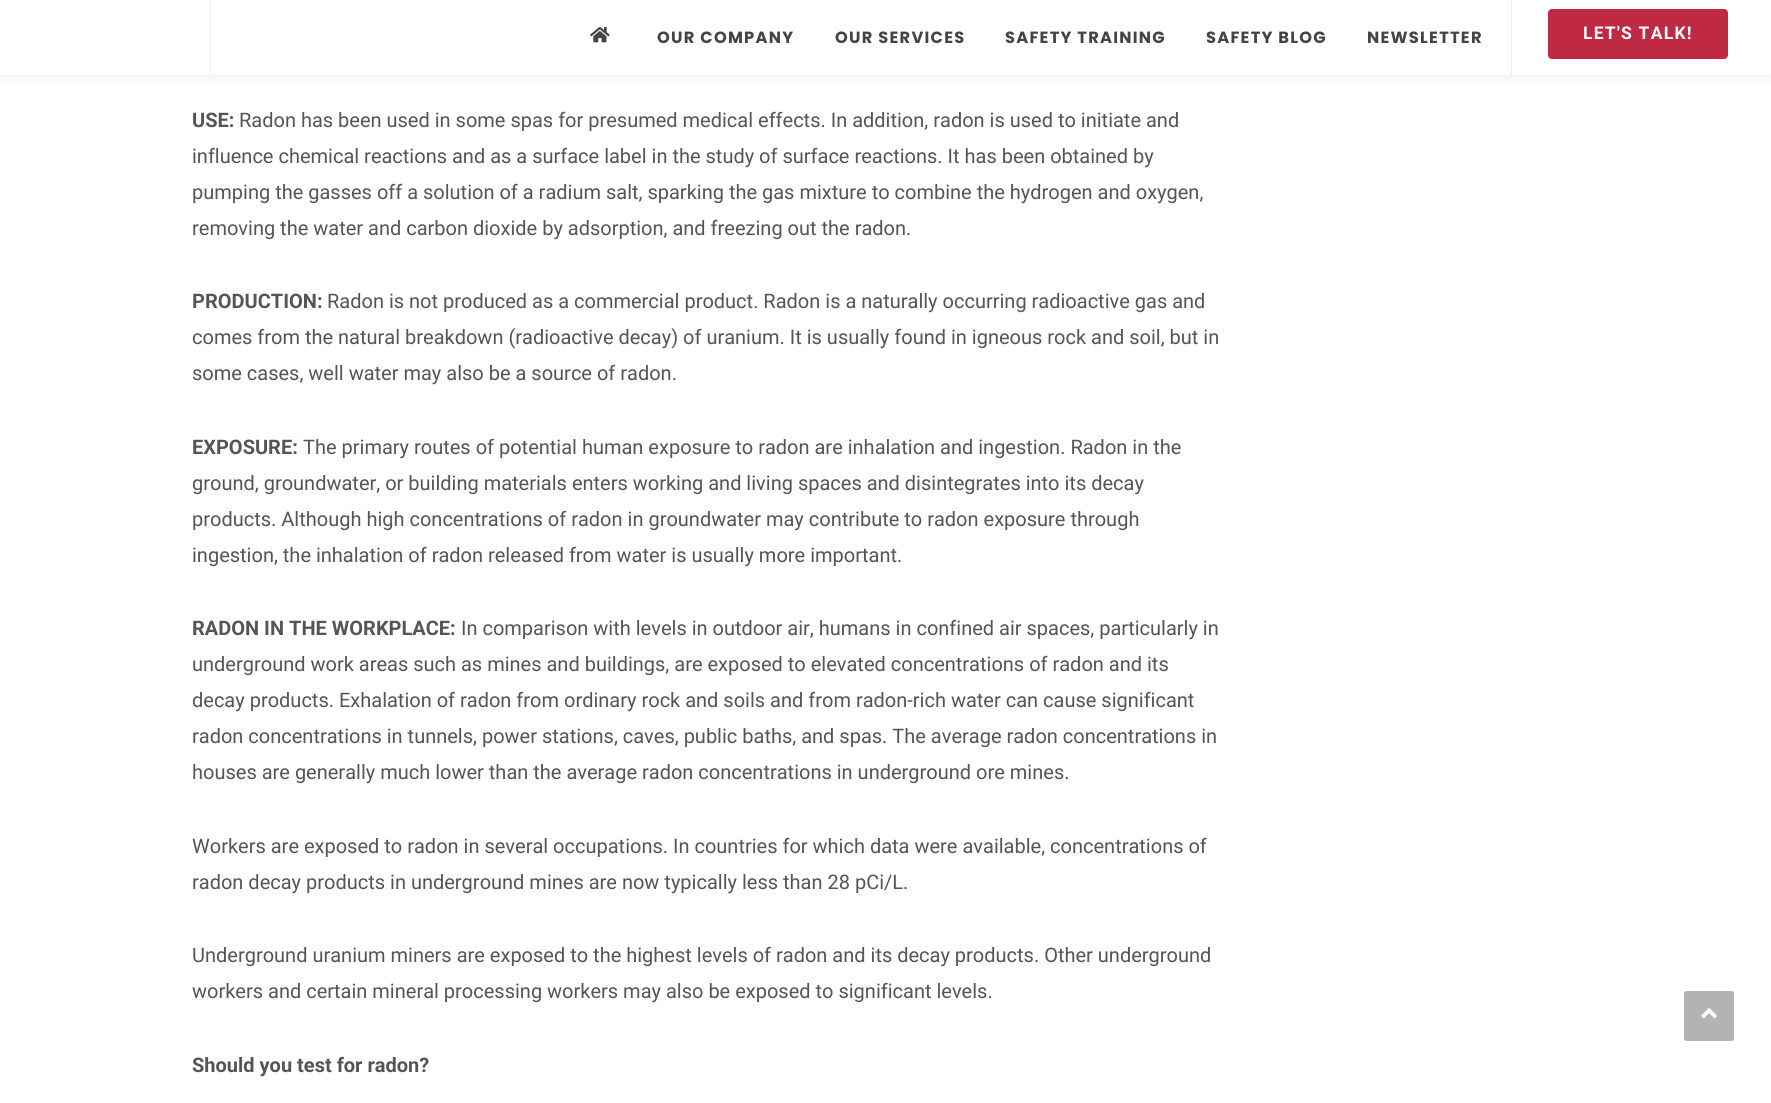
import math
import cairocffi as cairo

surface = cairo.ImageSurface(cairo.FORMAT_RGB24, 1771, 1103)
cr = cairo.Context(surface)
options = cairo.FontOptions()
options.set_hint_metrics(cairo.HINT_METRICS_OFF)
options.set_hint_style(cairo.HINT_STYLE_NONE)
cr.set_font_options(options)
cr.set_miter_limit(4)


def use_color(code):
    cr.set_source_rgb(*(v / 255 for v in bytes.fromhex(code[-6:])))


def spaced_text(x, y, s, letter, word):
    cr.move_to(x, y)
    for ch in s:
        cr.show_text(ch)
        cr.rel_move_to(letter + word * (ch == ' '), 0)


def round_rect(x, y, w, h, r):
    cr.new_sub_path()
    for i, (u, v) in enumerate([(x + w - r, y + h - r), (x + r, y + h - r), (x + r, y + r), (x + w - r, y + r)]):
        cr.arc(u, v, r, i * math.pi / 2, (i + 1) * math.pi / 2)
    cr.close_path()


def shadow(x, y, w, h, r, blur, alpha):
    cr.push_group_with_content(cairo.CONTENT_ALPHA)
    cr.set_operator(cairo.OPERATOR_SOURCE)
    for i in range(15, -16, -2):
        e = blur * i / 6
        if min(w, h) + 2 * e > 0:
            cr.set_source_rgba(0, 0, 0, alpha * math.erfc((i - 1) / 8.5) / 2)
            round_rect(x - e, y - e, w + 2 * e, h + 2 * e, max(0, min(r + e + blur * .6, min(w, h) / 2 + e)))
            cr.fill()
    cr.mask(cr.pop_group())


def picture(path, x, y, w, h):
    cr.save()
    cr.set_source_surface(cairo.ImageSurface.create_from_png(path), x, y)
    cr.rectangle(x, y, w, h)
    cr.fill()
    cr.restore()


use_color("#ffffff")
cr.paint()
use_color("#000000")
shadow(0, 0, 1771, 75, 0, 6, 0.1)
use_color("#ffffff")
cr.rectangle(0, 0, 1771, 75)
cr.fill()
use_color("#eeeeee")
cr.rectangle(210, 0, 1, 75)
cr.fill()
cr.rectangle(1511, 0, 1, 75)
cr.fill()
picture("img1.png", 590, 27, 20, 16)
cr.select_font_face("Poppins", cairo.FONT_SLANT_NORMAL, cairo.FONT_WEIGHT_BOLD)
cr.set_font_size(16.25)
use_color("#444444")
spaced_text(657, 43, "OUR COMPANY", 1.25, 0)
spaced_text(835, 43, "OUR SERVICES", 1.25, 0)
spaced_text(1005, 43, "SAFETY TRAINING", 1.25, 0)
spaced_text(1206, 43, "SAFETY BLOG", 1.25, 0)
spaced_text(1367, 43, "NEWSLETTER", 1.25, 0)
use_color("#c02942")
round_rect(1548, 9, 180, 50, 4)
cr.fill()
cr.select_font_face("Roboto", cairo.FONT_SLANT_NORMAL, cairo.FONT_WEIGHT_BOLD)
cr.set_font_size(17.5)
use_color("#ffffff")
spaced_text(1583, 39, "LET'S TALK!", 1.25, 0)
cr.set_font_size(20)
use_color("#555555")
cr.move_to(192, 127)
cr.show_text("USE:")
cr.select_font_face("Roboto")
cr.move_to(239, 127)
cr.show_text("Radon has been used in some spas for presumed medical effects. In addition, radon is used to initiate and")
cr.move_to(192, 163)
cr.show_text("influence chemical reactions and as a surface label in the study of surface reactions. It has been obtained by")
cr.move_to(192, 199)
cr.show_text("pumping the gasses off a solution of a radium salt, sparking the gas mixture to combine the hydrogen and oxygen,")
cr.move_to(192, 235)
cr.show_text("removing the water and carbon dioxide by adsorption, and freezing out the radon.")
cr.select_font_face("Roboto", cairo.FONT_SLANT_NORMAL, cairo.FONT_WEIGHT_BOLD)
cr.move_to(192, 308)
cr.show_text("PRODUCTION:")
cr.select_font_face("Roboto")
cr.move_to(327, 308)
cr.show_text("Radon is not produced as a commercial product. Radon is a naturally occurring radioactive gas and")
cr.move_to(192, 344)
cr.show_text("comes from the natural breakdown (radioactive decay) of uranium. It is usually found in igneous rock and soil, but in")
cr.move_to(192, 380)
cr.show_text("some cases, well water may also be a source of radon.")
cr.select_font_face("Roboto", cairo.FONT_SLANT_NORMAL, cairo.FONT_WEIGHT_BOLD)
cr.move_to(192, 454)
cr.show_text("EXPOSURE:")
cr.select_font_face("Roboto")
cr.move_to(303, 454)
cr.show_text("The primary routes of potential human exposure to radon are inhalation and ingestion. Radon in the")
cr.move_to(192, 490)
cr.show_text("ground, groundwater, or building materials enters working and living spaces and disintegrates into its decay")
cr.move_to(192, 526)
cr.show_text("products. Although high concentrations of radon in groundwater may contribute to radon exposure through")
cr.move_to(192, 562)
cr.show_text("ingestion, the inhalation of radon released from water is usually more important.")
cr.select_font_face("Roboto", cairo.FONT_SLANT_NORMAL, cairo.FONT_WEIGHT_BOLD)
cr.move_to(192, 635)
cr.show_text("RADON IN THE WORKPLACE:")
cr.select_font_face("Roboto")
cr.move_to(461, 635)
cr.show_text("In comparison with levels in outdoor air, humans in confined air spaces, particularly in")
cr.move_to(192, 671)
cr.show_text("underground work areas such as mines and buildings, are exposed to elevated concentrations of radon and its")
cr.move_to(192, 707)
cr.show_text("decay products. Exhalation of radon from ordinary rock and soils and from radon-rich water can cause significant")
cr.move_to(192, 743)
cr.show_text("radon concentrations in tunnels, power stations, caves, public baths, and spas. The average radon concentrations in")
cr.move_to(192, 779)
cr.show_text("houses are generally much lower than the average radon concentrations in underground ore mines.")
cr.move_to(192, 853)
cr.show_text("Workers are exposed to radon in several occupations. In countries for which data were available, concentrations of")
cr.move_to(192, 889)
cr.show_text("radon decay products in underground mines are now typically less than 28 pCi/L.")
cr.move_to(192, 962)
cr.show_text("Underground uranium miners are exposed to the highest levels of radon and its decay products. Other underground")
cr.move_to(192, 998)
cr.show_text("workers and certain mineral processing workers may also be exposed to significant levels.")
cr.select_font_face("Roboto", cairo.FONT_SLANT_NORMAL, cairo.FONT_WEIGHT_BOLD)
cr.move_to(192, 1072)
cr.show_text("Should you test for radon?")
use_color("#b3b3b3")
round_rect(1684, 991, 50, 50, 2.5)
cr.fill()
picture("img2.png", 1701, 1008, 16, 11)
surface.write_to_png("result.png")
